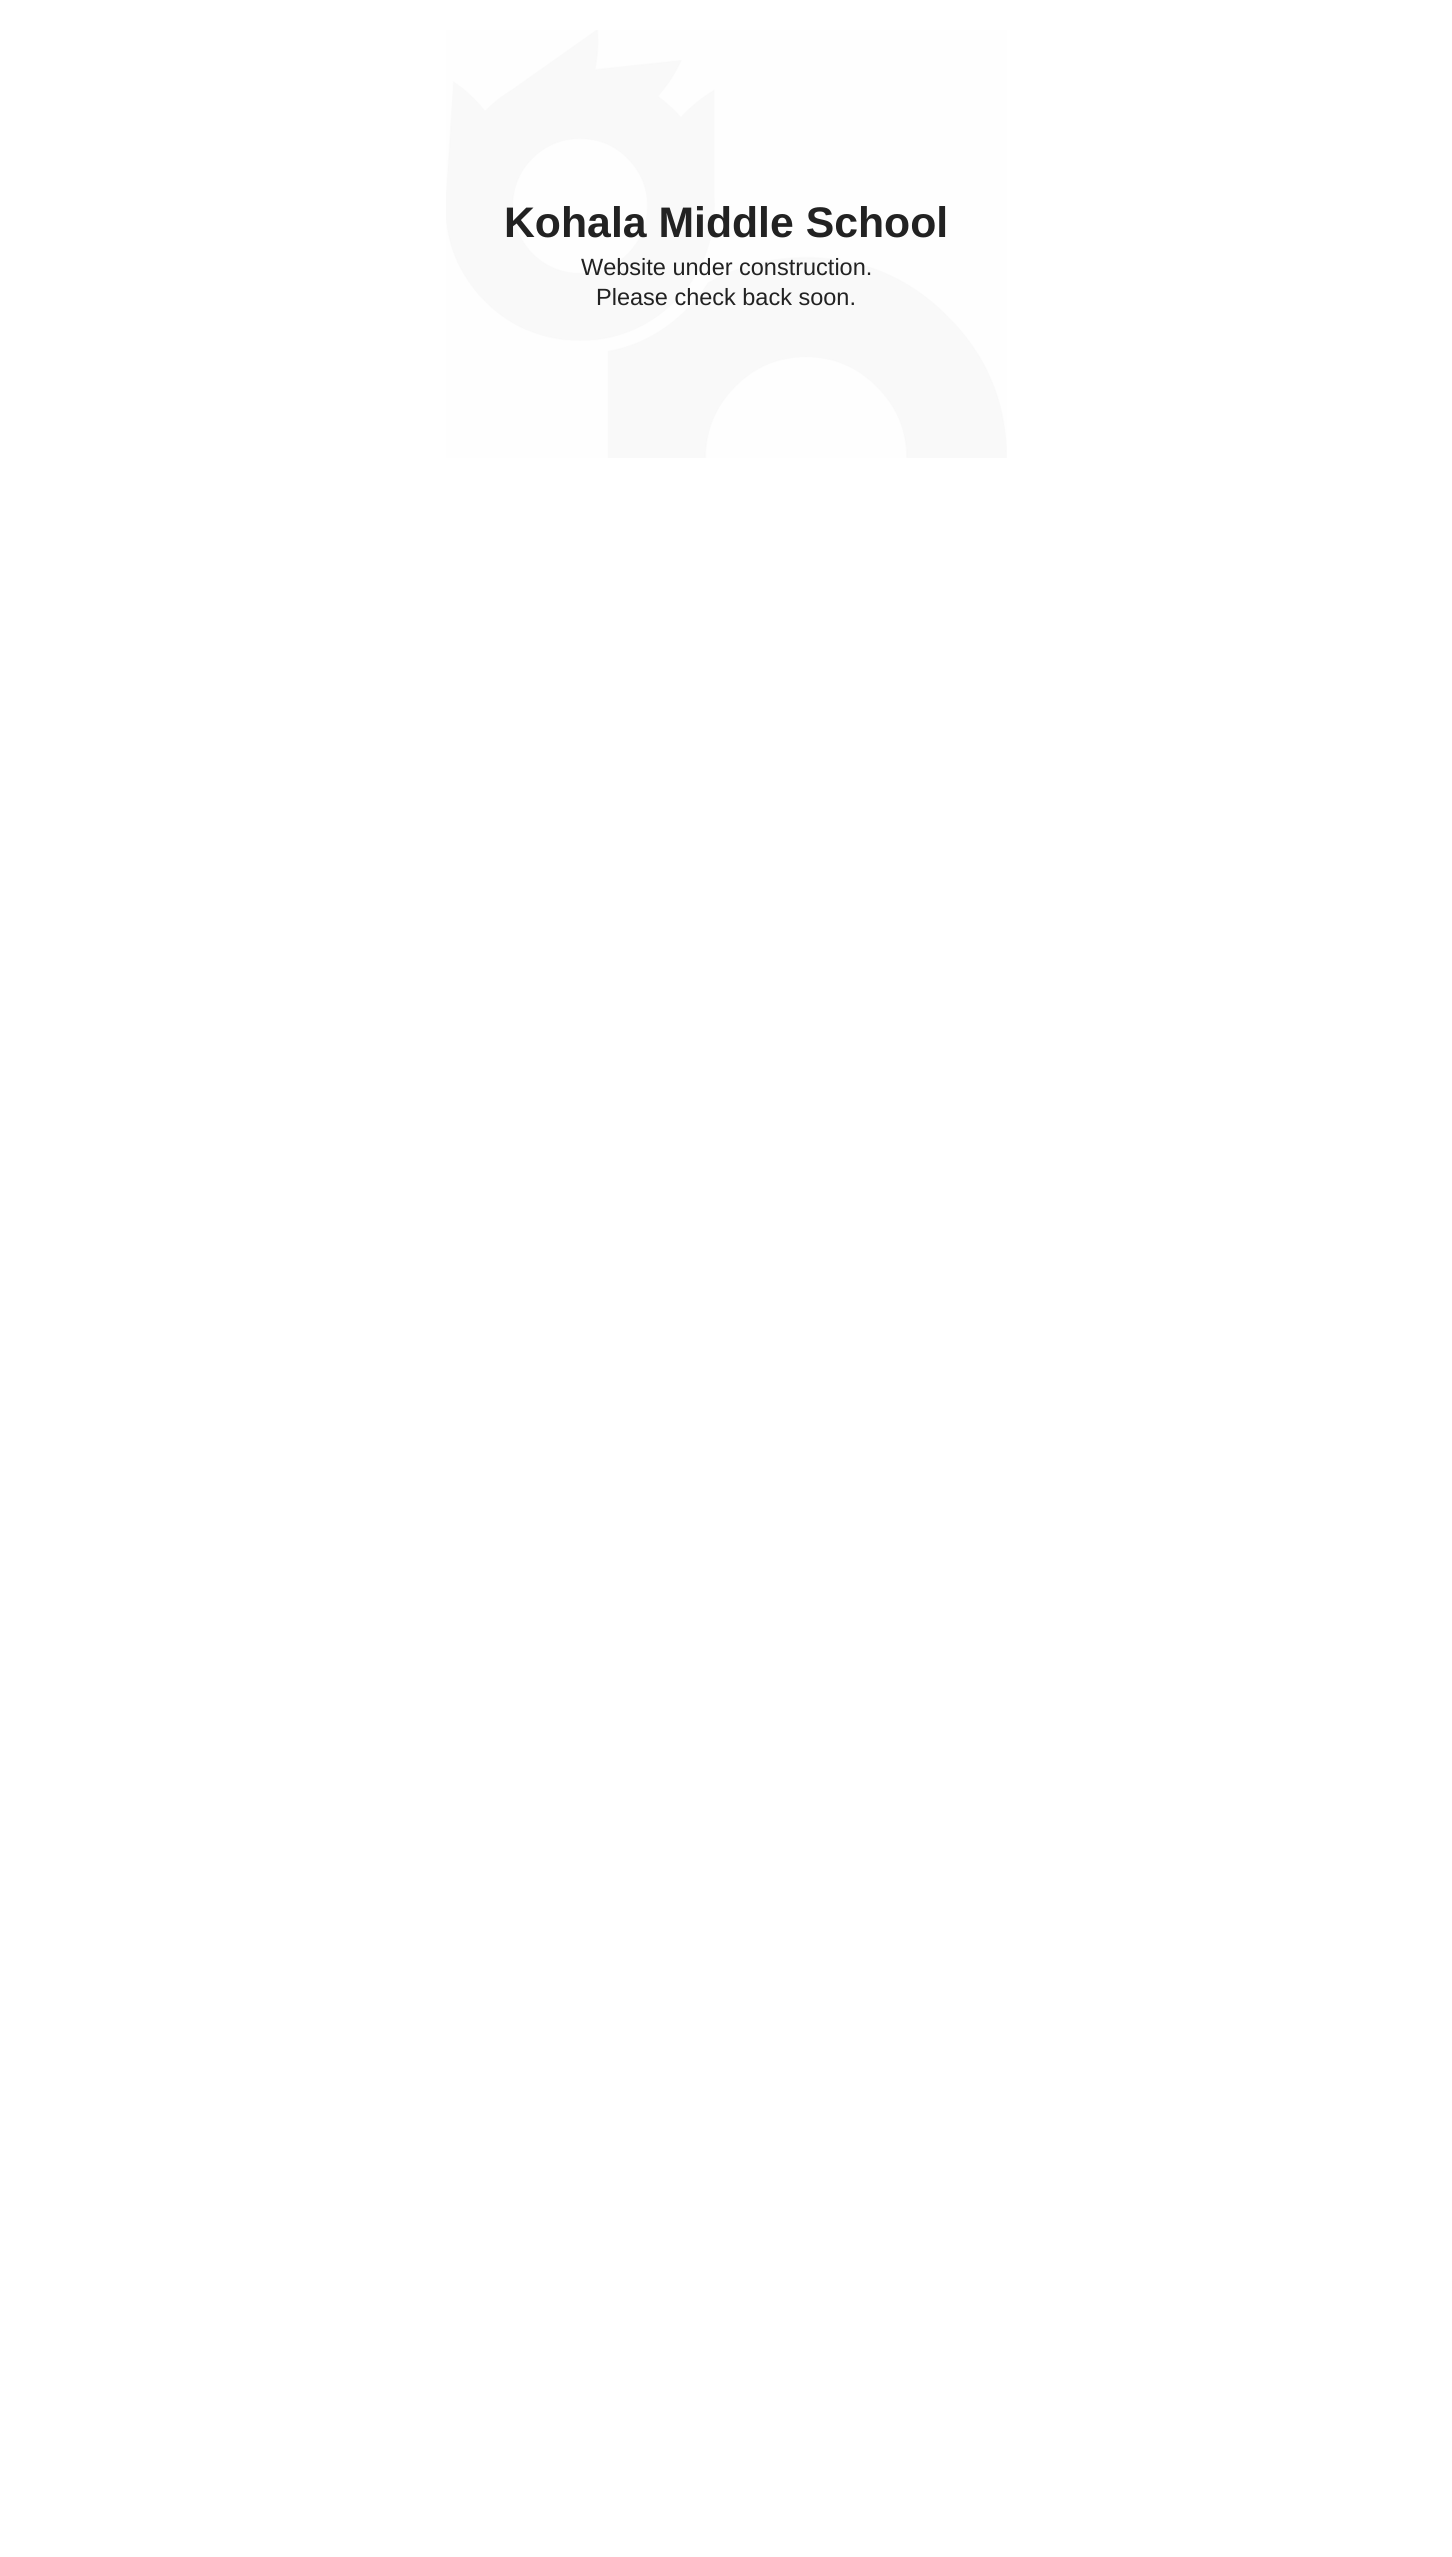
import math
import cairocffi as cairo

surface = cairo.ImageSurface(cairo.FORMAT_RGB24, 1452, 2557)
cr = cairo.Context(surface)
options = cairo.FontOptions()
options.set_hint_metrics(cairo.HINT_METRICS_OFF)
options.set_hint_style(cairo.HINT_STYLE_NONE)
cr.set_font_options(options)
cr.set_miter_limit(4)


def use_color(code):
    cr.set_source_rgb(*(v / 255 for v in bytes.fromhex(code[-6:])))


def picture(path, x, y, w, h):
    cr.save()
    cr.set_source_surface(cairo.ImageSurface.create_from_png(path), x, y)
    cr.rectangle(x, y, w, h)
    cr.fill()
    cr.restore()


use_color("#ffffff")
cr.paint()
picture("img1.png", 446, 30, 561, 428)
cr.select_font_face("Liberation Sans", cairo.FONT_SLANT_NORMAL, cairo.FONT_WEIGHT_BOLD)
cr.set_font_size(42.75)
use_color("#222222")
cr.move_to(504, 237)
cr.show_text("Kohala Middle School")
cr.select_font_face("Liberation Sans")
cr.set_font_size(23.5)
cr.move_to(581, 275)
cr.show_text("Website under construction.")
cr.move_to(596, 305)
cr.show_text("Please check back soon.")
surface.write_to_png("result.png")
